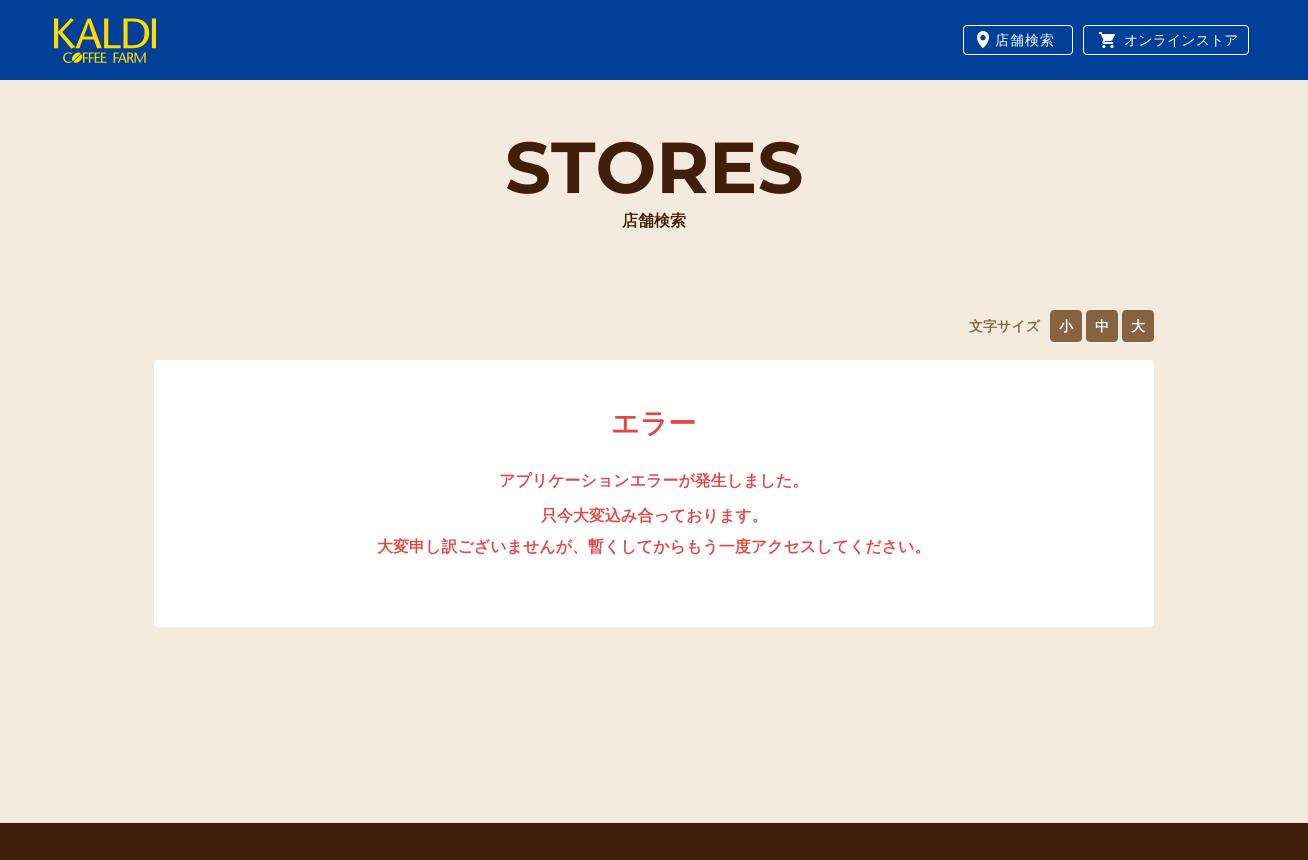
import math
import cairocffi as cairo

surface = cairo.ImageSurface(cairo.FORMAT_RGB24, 1308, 860)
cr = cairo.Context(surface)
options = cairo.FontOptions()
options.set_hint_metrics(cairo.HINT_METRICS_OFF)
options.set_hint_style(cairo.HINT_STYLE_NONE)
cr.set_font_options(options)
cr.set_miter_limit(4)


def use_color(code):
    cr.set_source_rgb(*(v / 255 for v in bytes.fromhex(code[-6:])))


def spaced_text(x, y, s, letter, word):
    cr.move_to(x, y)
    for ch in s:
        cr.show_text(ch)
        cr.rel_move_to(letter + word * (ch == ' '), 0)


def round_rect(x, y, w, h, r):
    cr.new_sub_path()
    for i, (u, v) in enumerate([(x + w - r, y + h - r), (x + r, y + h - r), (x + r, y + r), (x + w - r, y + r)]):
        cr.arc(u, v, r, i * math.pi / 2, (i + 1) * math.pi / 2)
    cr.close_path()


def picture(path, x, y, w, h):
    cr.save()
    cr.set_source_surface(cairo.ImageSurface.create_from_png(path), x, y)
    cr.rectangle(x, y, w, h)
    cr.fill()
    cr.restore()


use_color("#f4eadd")
cr.paint()
use_color("#004099")
cr.rectangle(0, 0, 1308, 80)
cr.fill()
picture("img1.png", 54, 18, 102, 45)
picture("img2.png", 977, 31, 12, 17)
round_rect(963.5, 25.5, 109, 29, 3.5)
use_color("#ffffff")
cr.set_line_width(1)
cr.stroke()
cr.select_font_face("WenQuanYi Zen Hei Medium")
cr.set_font_size(14)
spaced_text(995, 45, "店舗検索", 1, 0)
picture("img3.png", 1099, 32, 16, 16)
round_rect(1083.5, 25.5, 165, 29, 3.5)
cr.stroke()
cr.move_to(1124, 45)
cr.show_text("オンラインストア")
cr.select_font_face("Montserrat Thin")
cr.set_font_size(72)
use_color("#411e0a")
cr.move_to(505, 193)
cr.show_text("STORES")
cr.select_font_face("WenQuanYi Zen Hei", cairo.FONT_SLANT_NORMAL, cairo.FONT_WEIGHT_BOLD)
cr.set_font_size(16)
cr.move_to(622, 226)
cr.show_text("店舗検索")
cr.set_font_size(14)
use_color("#876441")
cr.move_to(969, 331)
cr.show_text("文字サイズ")
round_rect(1050, 310, 32, 32, 4)
cr.fill()
use_color("#ffffff")
cr.move_to(1059, 331)
cr.show_text("小")
use_color("#876441")
round_rect(1086, 310, 32, 32, 4)
cr.fill()
use_color("#ffffff")
cr.move_to(1095, 331)
cr.show_text("中")
use_color("#876441")
round_rect(1122, 310, 32, 32, 4)
cr.fill()
use_color("#ffffff")
cr.move_to(1131, 331)
cr.show_text("大")
round_rect(154, 360, 1000, 267, 4)
cr.fill()
cr.set_font_size(28)
use_color("#e64641")
cr.move_to(611, 433)
cr.show_text("エラー")
cr.set_font_size(16)
cr.move_to(499, 486)
cr.show_text("アプリケーションエラーが発生しました。")
cr.move_to(541, 521)
cr.show_text("只今大変込み合っております。")
cr.move_to(377, 552)
cr.show_text("大変申し訳ございませんが、暫くしてからもう一度アクセスしてください。")
use_color("#411e0a")
cr.rectangle(0, 823, 1308, 37)
cr.fill()
surface.write_to_png("result.png")
